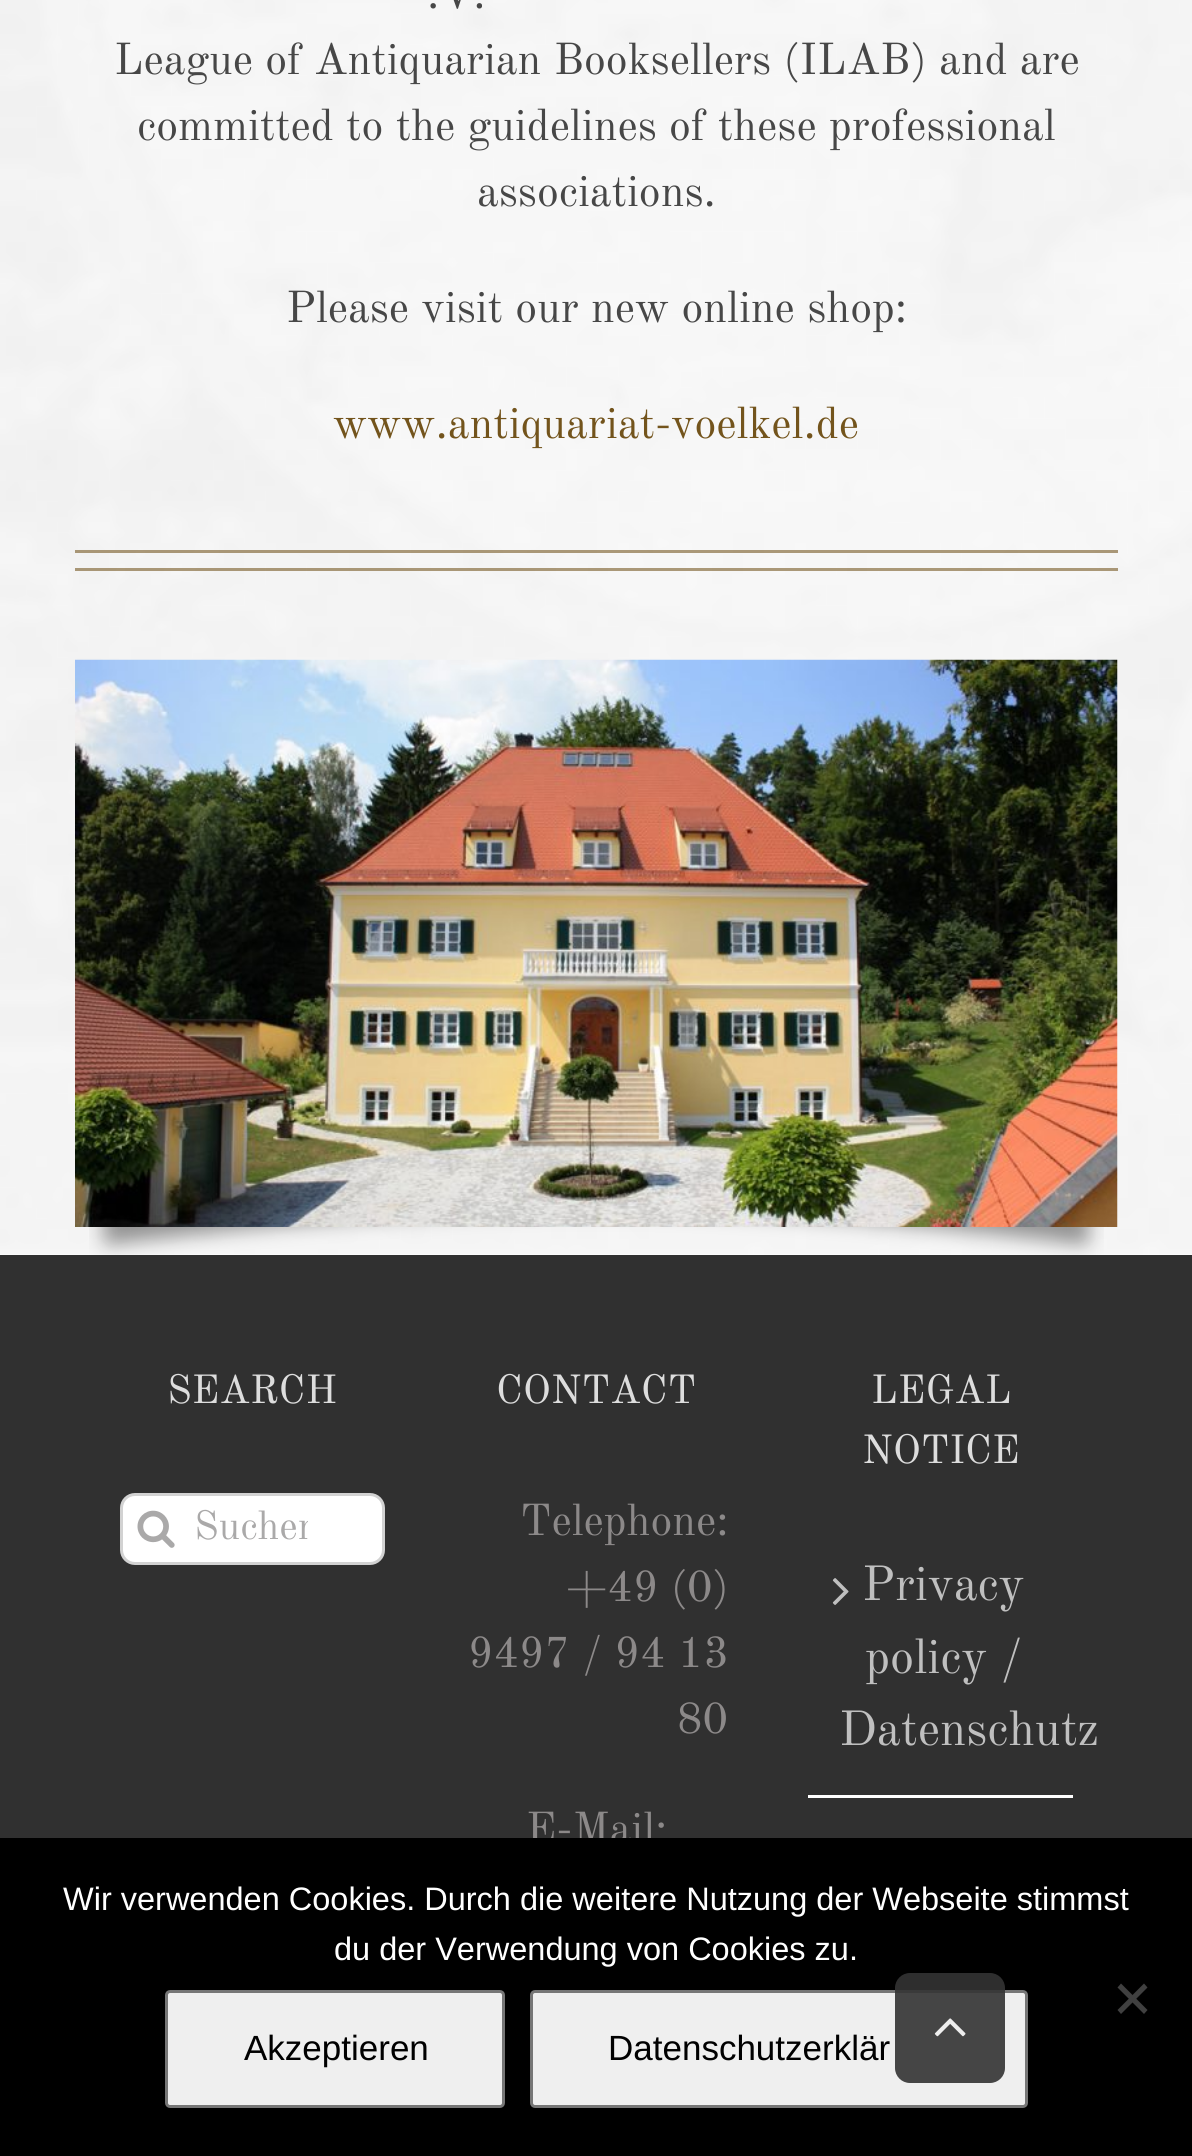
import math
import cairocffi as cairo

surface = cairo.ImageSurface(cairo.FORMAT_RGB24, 1192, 2156)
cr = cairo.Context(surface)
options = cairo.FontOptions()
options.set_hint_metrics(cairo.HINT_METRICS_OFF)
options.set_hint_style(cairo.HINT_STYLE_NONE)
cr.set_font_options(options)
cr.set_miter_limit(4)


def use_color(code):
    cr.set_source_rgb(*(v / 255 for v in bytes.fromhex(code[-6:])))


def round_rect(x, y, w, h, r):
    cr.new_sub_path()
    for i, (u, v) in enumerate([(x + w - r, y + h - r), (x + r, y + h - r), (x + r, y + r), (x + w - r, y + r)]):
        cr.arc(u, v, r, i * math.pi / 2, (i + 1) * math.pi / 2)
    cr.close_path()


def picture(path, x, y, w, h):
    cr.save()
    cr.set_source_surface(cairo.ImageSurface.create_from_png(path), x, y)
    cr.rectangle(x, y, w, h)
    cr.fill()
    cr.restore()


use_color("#ffffff")
cr.paint()
picture("img1.png", 0, 0, 1192, 1255)
cr.select_font_face("Old Standard TT")
cr.set_font_size(44)
use_color("#474747")
cr.move_to(427, 8)
cr.show_text(".V.")
cr.move_to(114, 74)
cr.show_text("League of Antiquarian Booksellers (ILAB) and are")
cr.move_to(137, 140)
cr.show_text("committed to the guidelines of these professional")
cr.move_to(477, 206)
cr.show_text("associations.")
cr.move_to(286, 322)
cr.show_text("Please visit our new online shop:")
use_color("#73541c")
cr.move_to(333, 438)
cr.show_text("www.antiquariat-voelkel.de")
cr.set_source_rgba(0.451, 0.329, 0.11, 0.58)
cr.rectangle(75, 550, 1043, 3)
cr.fill()
cr.rectangle(75, 568, 1043, 3)
cr.fill()
picture("img2.png", 75, 659, 1043, 568)
picture("img3.png", 89, 1227, 1015, 28)
use_color("#303030")
cr.rectangle(0, 1255, 1192, 583)
cr.fill()
cr.set_font_size(40)
use_color("#dddddd")
cr.move_to(167, 1403)
cr.show_text("SEARCH")
use_color("#ffffff")
round_rect(121.5, 1494.5, 262, 69, 13.5)
cr.fill_preserve()
use_color("#d2d2d2")
cr.set_line_width(3)
cr.stroke()
picture("img4.png", 137, 1510, 38, 38)
cr.save()
cr.rectangle(195, 1505, 113, 50)
cr.clip()
use_color("#aaa9a9")
cr.move_to(194, 1539)
cr.show_text("Suchen")
cr.restore()
use_color("#dddddd")
cr.move_to(496, 1403)
cr.show_text("CONTACT")
cr.set_font_size(44)
use_color("#8c8989")
cr.move_to(520, 1535)
cr.show_text("Telephone:")
cr.move_to(566, 1601)
cr.show_text("+49 (0)")
cr.move_to(468, 1667)
cr.show_text("9497 / 94 13")
cr.move_to(677, 1733)
cr.show_text("80")
cr.move_to(526, 1843)
cr.show_text("E-Mail:")
cr.set_font_size(40)
use_color("#dddddd")
cr.move_to(871, 1403)
cr.show_text("LEGAL")
cr.move_to(862, 1463)
cr.show_text("NOTICE")
use_color("#ffffff")
cr.rectangle(808, 1795, 265, 3)
cr.fill()
picture("img5.png", 832, 1578, 17, 27)
cr.set_font_size(48.5)
use_color("#bfbfbf")
cr.move_to(862, 1600)
cr.show_text("Privacy")
cr.move_to(865, 1673)
cr.show_text("policy /")
cr.move_to(839, 1745)
cr.show_text("Datenschutz")
use_color("#000000")
cr.rectangle(0, 1838, 1192, 318)
cr.fill()
cr.select_font_face("Liberation Sans")
cr.set_font_size(32.5)
use_color("#ffffff")
cr.move_to(63, 1910)
cr.show_text("Wir verwenden Cookies. Durch die weitere Nutzung der Webseite stimmst")
cr.move_to(334, 1960)
cr.show_text("du der Verwendung von Cookies zu.")
use_color("#404040")
cr.new_path()
cr.move_to(1144, 1983.5)
cr.line_to(1147.5, 1987.5)
cr.line_to(1121, 2014)
cr.line_to(1117.5, 2010)
cr.close_path()
cr.fill()
cr.new_path()
cr.move_to(1117.5, 1987.5)
cr.line_to(1121, 1983.5)
cr.line_to(1147.5, 2010)
cr.line_to(1144, 2014)
cr.close_path()
cr.fill()
use_color("#efefef")
round_rect(166.5, 1991.5, 337, 115, 3.5)
cr.fill_preserve()
use_color("#767676")
cr.stroke()
cr.set_font_size(35)
use_color("#000000")
cr.move_to(244, 2060)
cr.show_text("Akzeptieren")
use_color("#efefef")
round_rect(531.5, 1991.5, 495, 115, 3.5)
cr.fill_preserve()
use_color("#767676")
cr.stroke()
use_color("#000000")
cr.move_to(608, 2060)
cr.show_text("Datenschutzerklär")
cr.set_source_rgba(0.2, 0.2, 0.2, 0.9)
round_rect(895, 1973, 110, 110, 15)
cr.fill()
picture("img6.png", 934, 2018, 32, 19)
surface.write_to_png("result.png")
